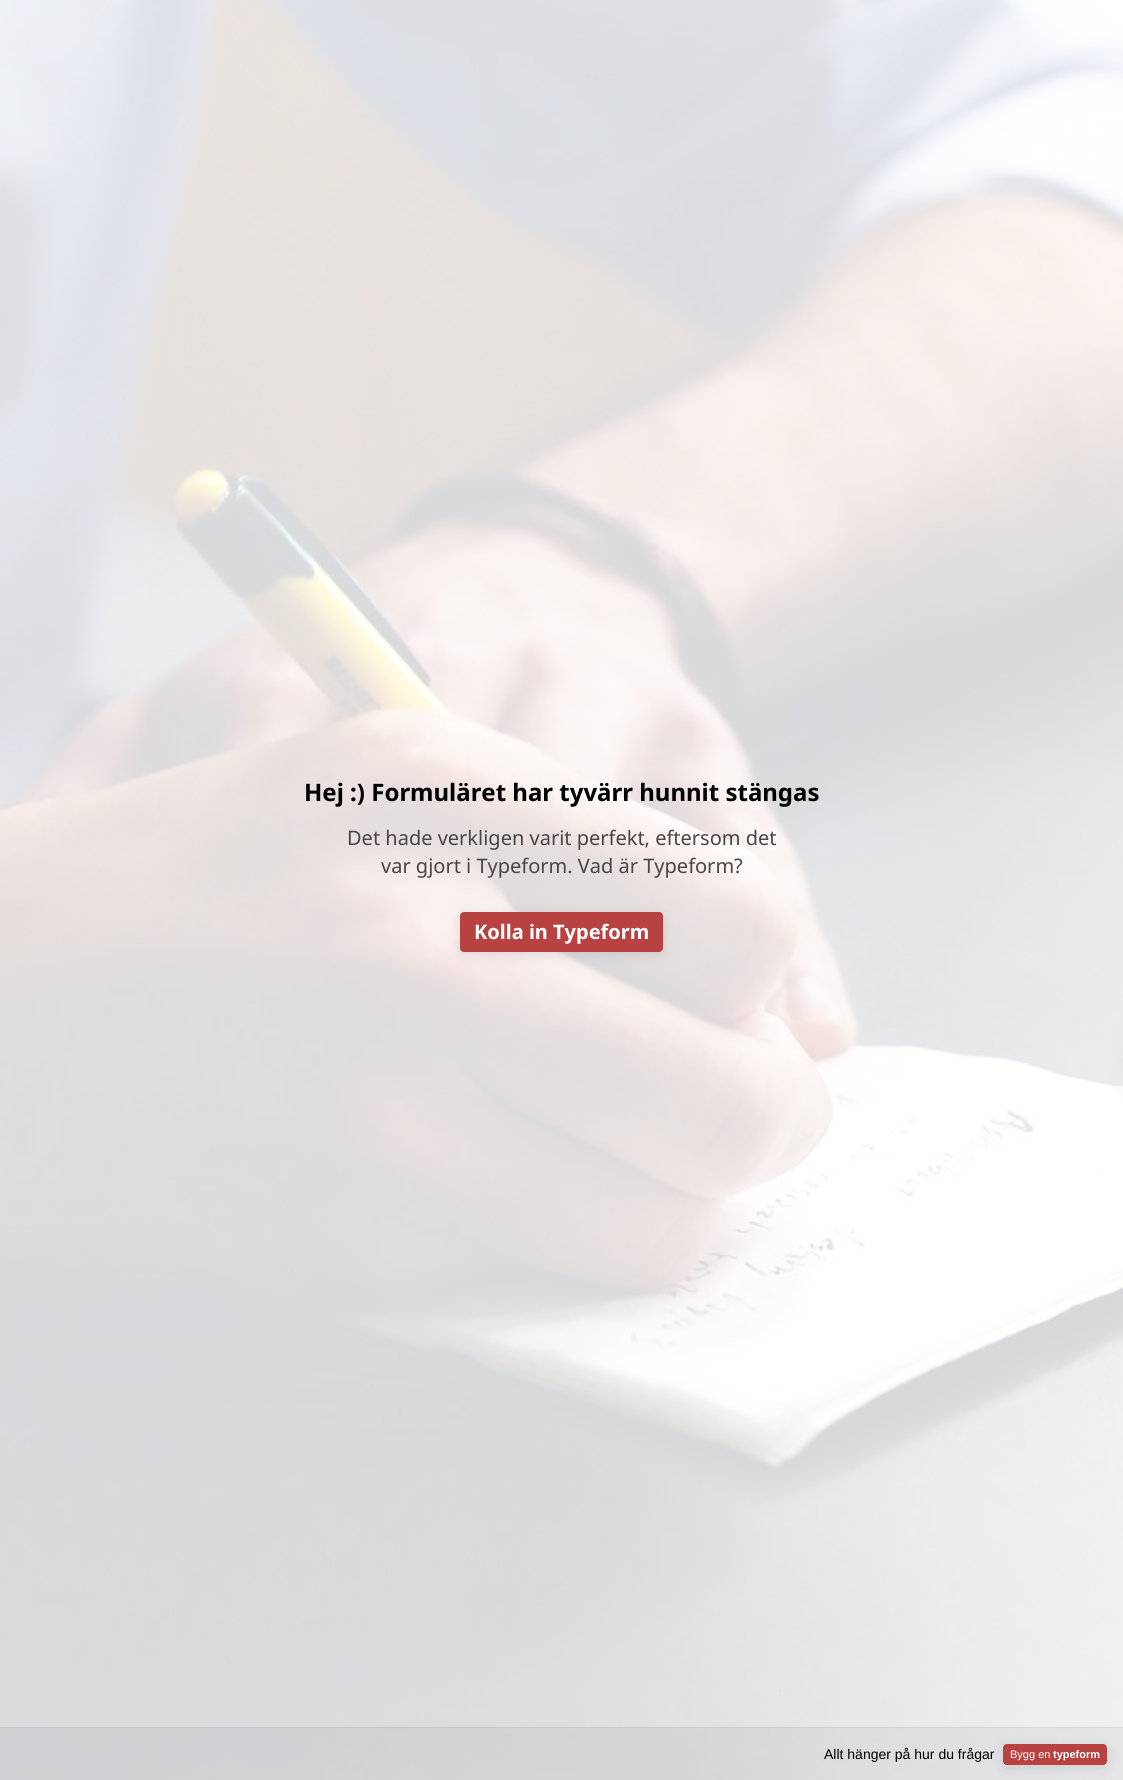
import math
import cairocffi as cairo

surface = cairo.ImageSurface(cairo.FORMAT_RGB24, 1123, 1780)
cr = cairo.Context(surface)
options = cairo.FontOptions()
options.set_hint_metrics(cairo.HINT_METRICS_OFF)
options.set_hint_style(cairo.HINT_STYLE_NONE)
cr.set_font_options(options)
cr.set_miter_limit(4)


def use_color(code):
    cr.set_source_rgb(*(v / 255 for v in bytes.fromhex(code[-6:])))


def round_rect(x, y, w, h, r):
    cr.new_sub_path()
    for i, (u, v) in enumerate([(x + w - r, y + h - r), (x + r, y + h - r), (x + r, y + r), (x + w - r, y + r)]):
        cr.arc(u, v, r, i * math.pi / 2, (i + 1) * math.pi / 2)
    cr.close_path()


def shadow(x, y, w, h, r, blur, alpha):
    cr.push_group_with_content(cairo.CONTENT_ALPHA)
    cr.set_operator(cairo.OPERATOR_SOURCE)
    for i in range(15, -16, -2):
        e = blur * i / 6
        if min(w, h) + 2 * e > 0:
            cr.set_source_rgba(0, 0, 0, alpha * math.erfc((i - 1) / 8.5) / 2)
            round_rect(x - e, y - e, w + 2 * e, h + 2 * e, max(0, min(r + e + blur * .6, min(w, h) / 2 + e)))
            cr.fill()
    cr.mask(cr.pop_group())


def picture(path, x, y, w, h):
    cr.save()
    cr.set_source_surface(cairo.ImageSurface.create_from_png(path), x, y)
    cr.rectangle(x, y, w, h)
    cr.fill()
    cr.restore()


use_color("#ffffff")
cr.paint()
picture("img1.png", 0, 0, 1123, 1780)
cr.select_font_face("Noto Sans", cairo.FONT_SLANT_NORMAL, cairo.FONT_WEIGHT_BOLD)
cr.set_font_size(24)
use_color("#000000")
cr.move_to(304, 801)
cr.show_text("Hej :) Formuläret har tyvärr hunnit stängas")
cr.select_font_face("Noto Sans")
cr.set_font_size(20)
use_color("#484545")
cr.move_to(347, 845)
cr.show_text("Det hade verkligen varit perfekt, eftersom det")
cr.move_to(381, 873)
cr.show_text("var gjort i Typeform. Vad är Typeform?")
use_color("#000000")
shadow(460, 915, 203, 40, 4, 6, 0.1)
use_color("#b84242")
round_rect(460, 912, 203, 40, 4)
cr.fill()
cr.select_font_face("Noto Sans", cairo.FONT_SLANT_NORMAL, cairo.FONT_WEIGHT_BOLD)
use_color("#ffffff")
cr.move_to(474, 939)
cr.show_text("Kolla in Typeform")
cr.set_source_rgba(0, 0, 0, 0.1)
cr.rectangle(0, 1727, 1123, 1)
cr.fill()
cr.set_source_rgba(0, 0, 0, 0.05)
cr.rectangle(0, 1728, 1123, 52)
cr.fill()
cr.select_font_face("Liberation Sans")
cr.set_font_size(14)
use_color("#000000")
cr.move_to(824, 1759)
cr.show_text("Allt hänger på hur du frågar")
use_color("#000000")
shadow(1003, 1747, 104, 21, 4, 6, 0.1)
use_color("#b84242")
round_rect(1003.5, 1744.5, 103, 20, 3.5)
cr.fill_preserve()
cr.set_line_width(1)
cr.stroke()
cr.set_font_size(11)
use_color("#ffffff")
cr.move_to(1010, 1758)
cr.show_text("Bygg en")
cr.select_font_face("Liberation Sans", cairo.FONT_SLANT_NORMAL, cairo.FONT_WEIGHT_BOLD)
cr.move_to(1053, 1758)
cr.show_text("typeform")
surface.write_to_png("result.png")
